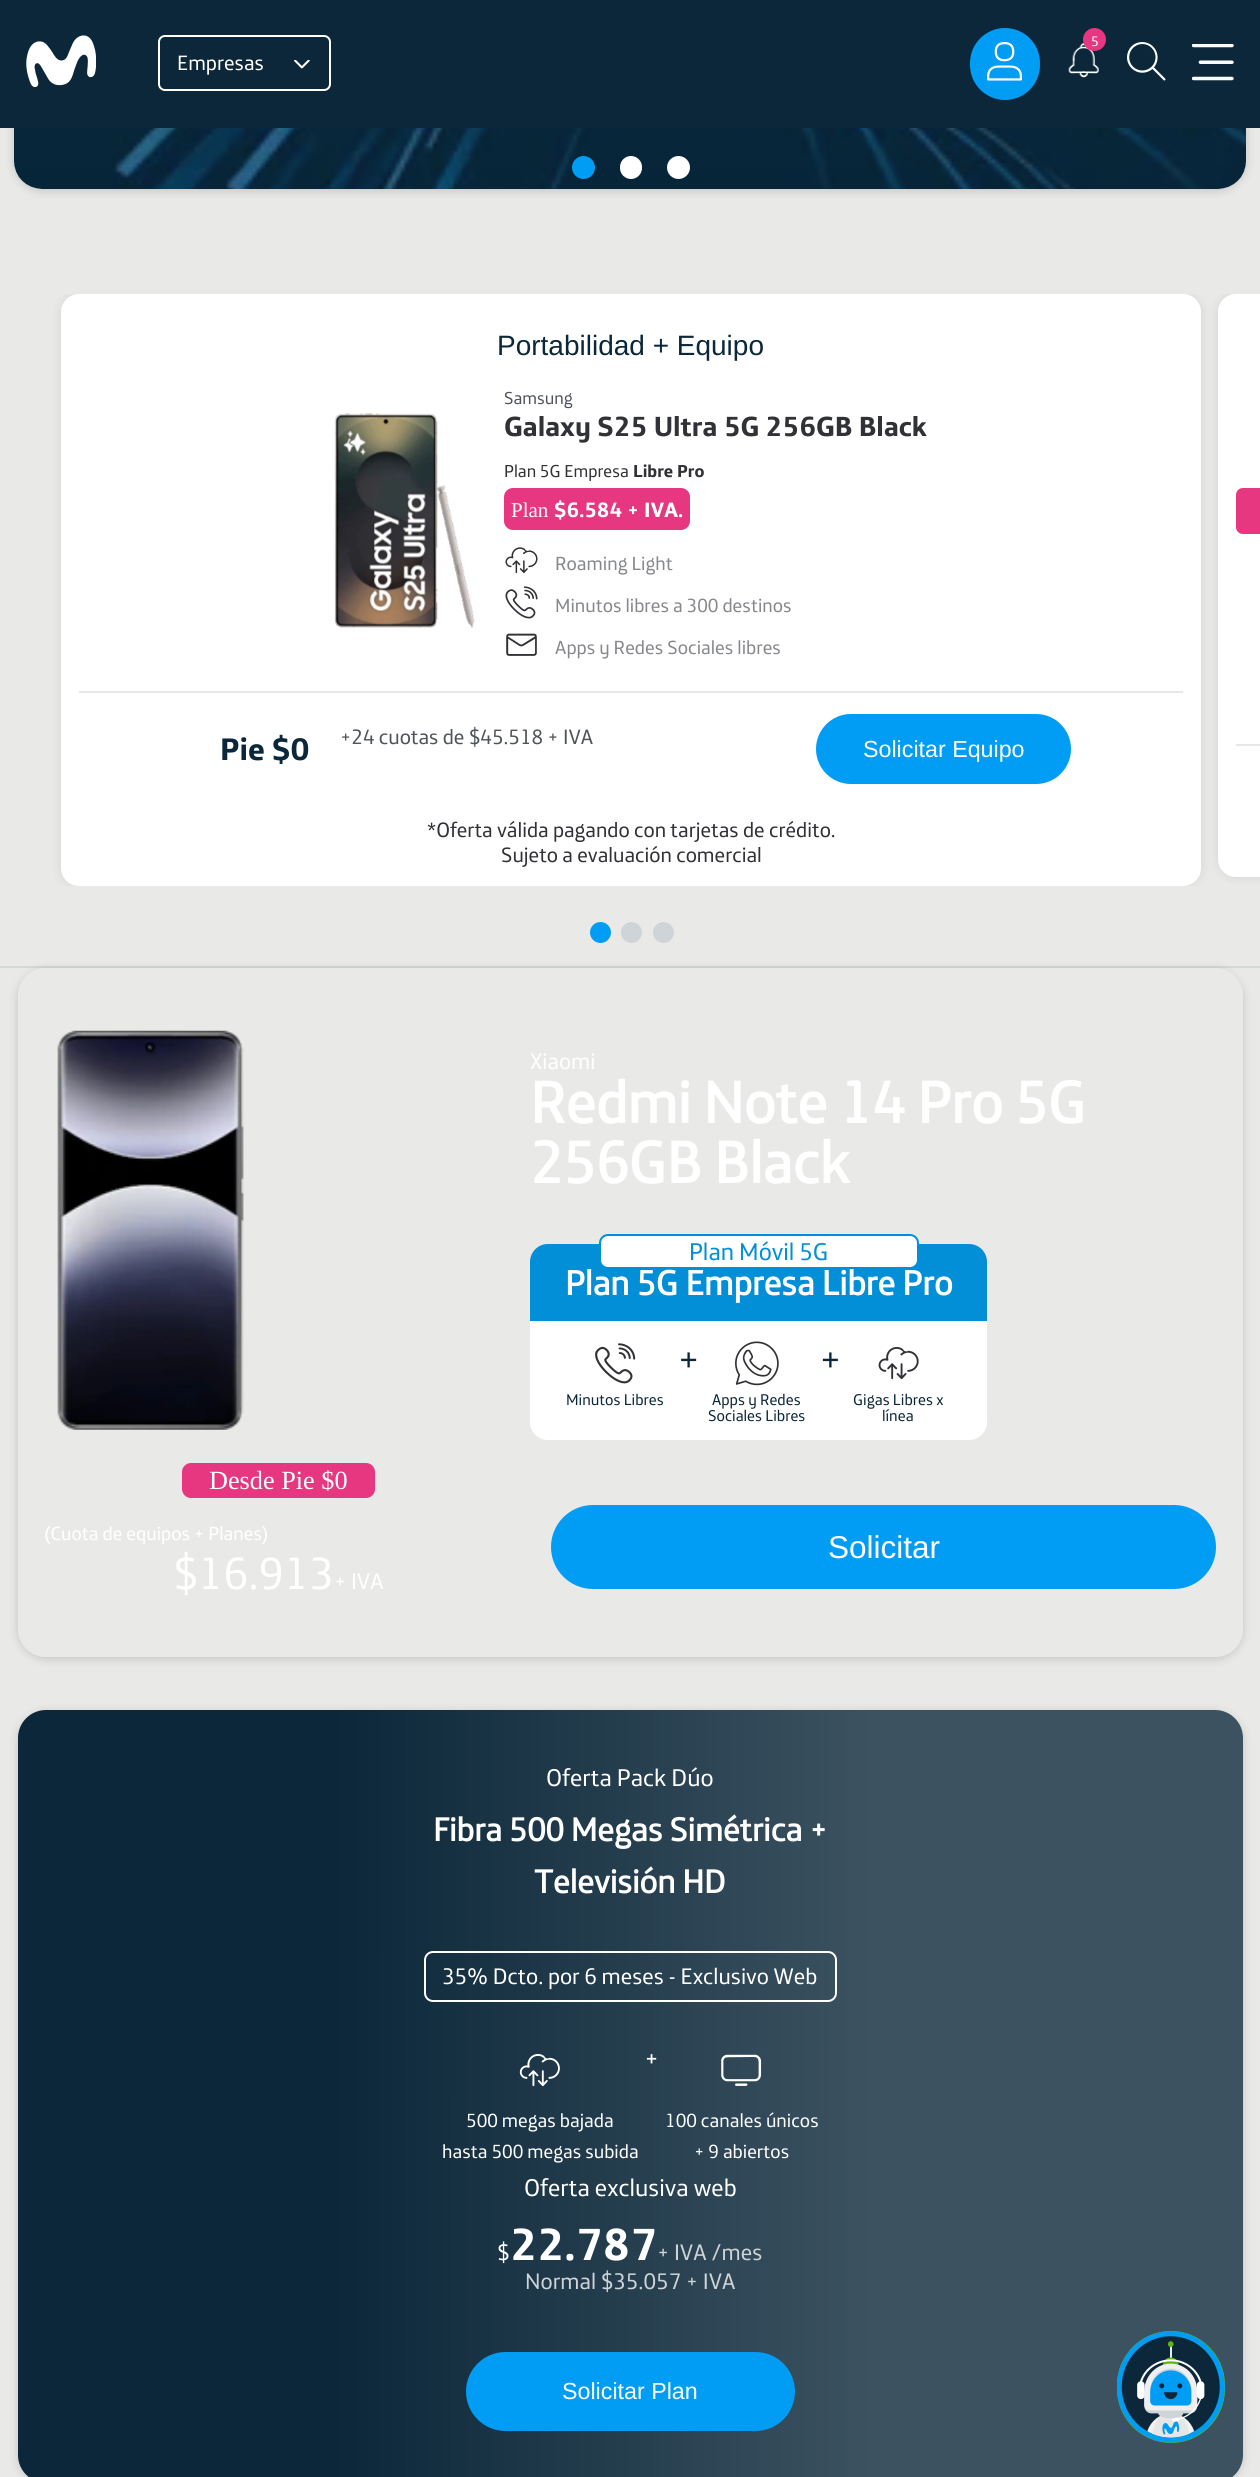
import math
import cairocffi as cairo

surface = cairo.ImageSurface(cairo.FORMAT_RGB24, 1260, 2477)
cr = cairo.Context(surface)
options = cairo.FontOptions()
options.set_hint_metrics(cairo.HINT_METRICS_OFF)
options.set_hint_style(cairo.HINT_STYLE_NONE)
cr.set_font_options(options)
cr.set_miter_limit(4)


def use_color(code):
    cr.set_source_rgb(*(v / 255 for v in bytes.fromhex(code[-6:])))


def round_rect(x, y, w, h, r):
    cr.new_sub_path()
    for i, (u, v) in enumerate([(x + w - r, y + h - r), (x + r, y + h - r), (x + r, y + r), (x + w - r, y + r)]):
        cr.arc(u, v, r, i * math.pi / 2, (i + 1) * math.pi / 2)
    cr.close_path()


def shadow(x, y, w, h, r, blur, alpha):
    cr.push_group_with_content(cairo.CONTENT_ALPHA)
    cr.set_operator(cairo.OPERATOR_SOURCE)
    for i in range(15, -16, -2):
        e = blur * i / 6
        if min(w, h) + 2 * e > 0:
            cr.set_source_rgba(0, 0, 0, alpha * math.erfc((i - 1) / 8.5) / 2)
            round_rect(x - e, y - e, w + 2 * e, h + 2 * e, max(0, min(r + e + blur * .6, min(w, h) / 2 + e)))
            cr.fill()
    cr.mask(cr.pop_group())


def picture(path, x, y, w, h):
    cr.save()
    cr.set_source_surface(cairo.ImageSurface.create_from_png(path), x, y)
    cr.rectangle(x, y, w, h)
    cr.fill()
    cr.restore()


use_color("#e9eae8")
cr.paint()
use_color("#000000")
shadow(14, -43, 1232, 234, 28, 5, 0.16)
use_color("#0b2739")
cr.rectangle(0, 0, 1260, 128)
cr.fill()
picture("img1.png", 26, 35, 70, 53)
use_color("#019df4")
round_rect(970, 28, 70, 72, 35)
cr.fill()
picture("img2.png", 987, 42, 35, 39)
picture("img3.png", 1068, 43, 31, 35)
use_color("#e63780")
cr.arc(1094.5, 39.5, 11.5, 0, 2 * math.pi)
cr.fill()
cr.select_font_face("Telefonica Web")
cr.set_font_size(14)
use_color("#ffffff")
cr.move_to(1091, 46)
cr.show_text("5")
picture("img4.png", 1127, 42, 39, 39)
picture("img5.png", 1192, 44, 42, 37)
round_rect(159, 36, 171, 54, 6)
cr.stroke()
cr.set_font_size(21)
cr.move_to(177, 70)
cr.show_text("Empresas")
picture("img6.png", 294, 60, 16, 9)
use_color("#d5d8d8")
cr.rectangle(0, 966, 1260, 2)
cr.fill()
picture("img7.png", 14, 128, 1232, 61)
use_color("#019df4")
cr.arc(583.5, 167.5, 11.5, 0, 2 * math.pi)
cr.fill()
use_color("#ffffff")
round_rect(620, 156, 22, 23, 11)
cr.fill()
cr.arc(678.5, 167.5, 11.5, 0, 2 * math.pi)
cr.fill()
cr.save()
cr.rectangle(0, 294, 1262, 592)
cr.clip()
use_color("#000000")
shadow(61, 294, 1140, 592, 18, 5, 0.1)
cr.restore()
round_rect(61, 294, 1140, 592, 18)
cr.fill()
cr.select_font_face("Liberation Sans")
cr.set_font_size(28)
use_color("#0b2739")
cr.move_to(497, 355)
cr.show_text("Portabilidad + Equipo")
picture("img8.png", 334, 413, 141, 215)
cr.select_font_face("Telefonica Web")
cr.set_font_size(17.5)
use_color("#50535a")
cr.move_to(504, 404)
cr.show_text("Samsung")
cr.select_font_face("Telefonica Web", cairo.FONT_SLANT_NORMAL, cairo.FONT_WEIGHT_BOLD)
cr.set_font_size(28)
use_color("#313235")
cr.move_to(504, 436)
cr.show_text("Galaxy S25 Ultra 5G 256GB Black")
cr.select_font_face("Telefonica Web")
cr.set_font_size(17.5)
cr.move_to(504, 477)
cr.show_text("Plan 5G Empresa")
cr.select_font_face("Telefonica Web", cairo.FONT_SLANT_NORMAL, cairo.FONT_WEIGHT_BOLD)
cr.move_to(633, 477)
cr.show_text("Libre Pro")
use_color("#e63780")
round_rect(504, 488, 186, 42, 9)
cr.fill()
cr.select_font_face("Liberation Serif")
cr.set_font_size(21)
use_color("#ffffff")
cr.move_to(511, 517)
cr.show_text("Plan")
cr.select_font_face("Telefonica Web", cairo.FONT_SLANT_NORMAL, cairo.FONT_WEIGHT_BOLD)
cr.move_to(554, 517)
cr.show_text("$6.584 + IVA.")
picture("img9.png", 505, 547, 33, 26)
cr.select_font_face("Telefonica Web")
cr.set_font_size(19.25)
use_color("#86888c")
cr.move_to(555, 570)
cr.show_text("Roaming Light")
picture("img10.png", 505, 586, 33, 33)
cr.move_to(555, 612)
cr.show_text("Minutos libres a 300 destinos")
picture("img11.png", 506, 633, 31, 23)
cr.move_to(555, 654)
cr.show_text("Apps y Redes Sociales libres")
use_color("#e7e7e8")
cr.rectangle(79, 691, 1104, 2)
cr.fill()
cr.select_font_face("Telefonica Web", cairo.FONT_SLANT_NORMAL, cairo.FONT_WEIGHT_BOLD)
cr.set_font_size(31.5)
use_color("#0b2739")
cr.move_to(220, 760)
cr.show_text("Pie $0")
cr.select_font_face("Telefonica Web")
cr.set_font_size(21)
use_color("#50535a")
cr.move_to(340, 744)
cr.show_text("+24 cuotas de $45.518 + IVA")
use_color("#019df4")
round_rect(816, 714, 255, 70, 35)
cr.fill()
cr.select_font_face("Liberation Sans")
cr.set_font_size(23.25)
use_color("#ffffff")
cr.move_to(863, 757)
cr.show_text("Solicitar Equipo")
cr.select_font_face("Telefonica Web")
cr.set_font_size(21)
use_color("#313235")
cr.move_to(427, 837)
cr.show_text("*Oferta válida pagando con tarjetas de crédito.")
cr.move_to(501, 862)
cr.show_text("Sujeto a evaluación comercial")
cr.save()
cr.rectangle(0, 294, 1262, 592)
cr.clip()
use_color("#000000")
shadow(1218, 294, 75, 583, 18, 5, 0.1)
cr.restore()
use_color("#ffffff")
cr.new_path()
cr.move_to(1236, 294)
cr.line_to(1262, 294)
cr.line_to(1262, 877)
cr.line_to(1236, 877)
cr.curve_to(1226, 877, 1218, 869, 1218, 859)
cr.line_to(1218, 312)
cr.curve_to(1218, 302, 1226, 294, 1236, 294)
cr.close_path()
cr.fill()
use_color("#e7e7e8")
cr.rectangle(1236, 744, 24, 2)
cr.fill()
use_color("#e63780")
cr.new_path()
cr.move_to(1243, 488)
cr.line_to(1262, 488)
cr.line_to(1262, 534)
cr.line_to(1243, 534)
cr.curve_to(1239, 534, 1236, 531, 1236, 527)
cr.line_to(1236, 495)
cr.curve_to(1236, 491, 1239, 488, 1243, 488)
cr.close_path()
cr.fill()
use_color("#019df4")
cr.arc(600.5, 932.5, 10.5, 0, 2 * math.pi)
cr.fill()
use_color("#ced4d7")
cr.arc(631.5, 932.5, 8.5, 0, 2 * math.pi)
cr.fill_preserve()
cr.set_line_width(4)
cr.stroke()
cr.arc(663.5, 932.5, 8.5, 0, 2 * math.pi)
cr.fill_preserve()
cr.stroke()
cr.save()
cr.set_fill_rule(cairo.FILL_RULE_EVEN_ODD)
cr.new_path()
cr.move_to(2, 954)
cr.line_to(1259, 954)
cr.line_to(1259, 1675)
cr.line_to(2, 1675)
cr.close_path()
cr.move_to(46, 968)
cr.line_to(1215, 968)
cr.curve_to(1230.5, 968, 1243, 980.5, 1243, 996)
cr.line_to(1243, 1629)
cr.curve_to(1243, 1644.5, 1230.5, 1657, 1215, 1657)
cr.line_to(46, 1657)
cr.curve_to(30.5, 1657, 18, 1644.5, 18, 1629)
cr.line_to(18, 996)
cr.curve_to(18, 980.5, 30.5, 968, 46, 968)
cr.close_path()
cr.clip()
use_color("#000000")
shadow(18, 970, 1225, 689, 28, 5, 0.16)
cr.restore()
cr.set_font_size(22.75)
use_color("#ffffff")
cr.move_to(530, 1069)
cr.show_text("Xiaomi")
cr.select_font_face("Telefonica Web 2", cairo.FONT_SLANT_NORMAL, cairo.FONT_WEIGHT_BOLD)
cr.set_font_size(59.5)
cr.move_to(530, 1123)
cr.show_text("Redmi Note 14 Pro 5G")
cr.move_to(530, 1183)
cr.show_text("256GB Black")
use_color("#038ed8")
cr.new_path()
cr.move_to(548, 1244)
cr.line_to(969, 1244)
cr.curve_to(979, 1244, 987, 1252, 987, 1262)
cr.line_to(987, 1321)
cr.line_to(530, 1321)
cr.line_to(530, 1262)
cr.curve_to(530, 1252, 538, 1244, 548, 1244)
cr.close_path()
cr.fill()
use_color("#ffffff")
round_rect(600, 1235, 318, 33, 8)
cr.fill_preserve()
use_color("#038ed8")
cr.set_line_width(2)
cr.stroke()
cr.select_font_face("Telefonica Web")
cr.set_font_size(24.5)
cr.move_to(689, 1260)
cr.show_text("Plan Móvil 5G")
cr.select_font_face("Telefonica Web 2", cairo.FONT_SLANT_NORMAL, cairo.FONT_WEIGHT_BOLD)
cr.set_font_size(35)
use_color("#ffffff")
cr.move_to(565, 1295)
cr.show_text("Plan 5G Empresa Libre Pro")
cr.new_path()
cr.move_to(530, 1321)
cr.line_to(987, 1321)
cr.line_to(987, 1422)
cr.curve_to(987, 1432, 979, 1440, 969, 1440)
cr.line_to(548, 1440)
cr.curve_to(538, 1440, 530, 1432, 530, 1422)
cr.close_path()
cr.fill()
picture("img12.png", 595, 1343, 41, 41)
picture("img13.png", 681, 1352, 16, 16)
cr.select_font_face("Telefonica Web")
cr.set_font_size(15.75)
use_color("#0b2739")
cr.move_to(566, 1405)
cr.show_text("Minutos Libres")
picture("img14.png", 735, 1341, 44, 45)
picture("img15.png", 822, 1352, 16, 16)
cr.move_to(712, 1405)
cr.show_text("Apps y Redes")
cr.move_to(708, 1421)
cr.show_text("Sociales Libres")
picture("img16.png", 878, 1347, 41, 33)
cr.move_to(853, 1405)
cr.show_text("Gigas Libres x")
cr.move_to(882, 1421)
cr.show_text("línea")
picture("img17.png", 57, 1030, 187, 400)
use_color("#e63780")
round_rect(182, 1463, 193, 35, 9)
cr.fill()
cr.select_font_face("Liberation Serif")
cr.set_font_size(26.25)
use_color("#ffffff")
cr.move_to(209, 1489)
cr.show_text("Desde Pie $0")
cr.select_font_face("Telefonica Web")
cr.set_font_size(19.25)
cr.move_to(44, 1540)
cr.show_text("(Cuota de equipos + Planes)")
cr.set_font_size(45.5)
cr.move_to(173, 1589)
cr.show_text("$16.913")
cr.set_font_size(22.75)
cr.move_to(334, 1589)
cr.show_text("+ IVA")
use_color("#019df4")
round_rect(551, 1505, 665, 84, 42)
cr.fill()
cr.select_font_face("Liberation Sans")
cr.set_font_size(31.5)
use_color("#ffffff")
cr.move_to(828, 1558)
cr.show_text("Solicitar")
use_color("#000000")
shadow(18, 1712, 1225, 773, 28, 5, 0.16)
gradient = cairo.LinearGradient(17, 2096, 1243, 2097)
gradient.add_color_stop_rgba(0.26, 0.043, 0.153, 0.224, 1)
gradient.add_color_stop_rgba(0.7, 0.235, 0.322, 0.38, 1)
cr.set_source(gradient)
round_rect(18, 1710, 1225, 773, 28)
cr.fill()
cr.select_font_face("Telefonica Web")
cr.set_font_size(24.5)
use_color("#ffffff")
cr.move_to(546, 1786)
cr.show_text("Oferta Pack Dúo")
cr.select_font_face("Telefonica Web 2", cairo.FONT_SLANT_NORMAL, cairo.FONT_WEIGHT_BOLD)
cr.set_font_size(33.25)
cr.move_to(433, 1841)
cr.show_text("Fibra 500 Megas Simétrica +")
cr.move_to(534, 1893)
cr.show_text("Televisión HD")
round_rect(425, 1952, 411, 49, 8)
cr.stroke()
cr.select_font_face("Telefonica Web")
cr.set_font_size(22.75)
cr.move_to(442, 1984)
cr.show_text("35% Dcto. por 6 meses - Exclusivo Web")
cr.set_font_size(28)
cr.move_to(644, 2068)
cr.show_text("+")
picture("img18.png", 519, 2054, 41, 33)
cr.set_font_size(19.25)
cr.move_to(466, 2127)
cr.show_text("500 megas bajada")
cr.move_to(442, 2158)
cr.show_text("hasta 500 megas subida")
picture("img19.png", 721, 2054, 41, 32)
cr.move_to(665, 2127)
cr.show_text("100 canales únicos")
cr.move_to(694, 2158)
cr.show_text("+ 9 abiertos")
cr.set_font_size(24.5)
cr.move_to(524, 2196)
cr.show_text("Oferta exclusiva web")
cr.set_font_size(22.75)
cr.move_to(497, 2260)
cr.show_text("$")
cr.select_font_face("Telefonica Web", cairo.FONT_SLANT_NORMAL, cairo.FONT_WEIGHT_BOLD)
cr.set_font_size(45.5)
cr.move_to(510, 2260)
cr.show_text("22.787")
cr.select_font_face("Telefonica Web")
cr.set_font_size(22.75)
use_color("#ced4d7")
cr.move_to(657, 2260)
cr.show_text("+ IVA /mes")
cr.move_to(525, 2289)
cr.show_text("Normal $35.057 + IVA")
use_color("#019df4")
round_rect(466, 2352, 329, 79, 39.5)
cr.fill()
cr.select_font_face("Liberation Sans")
cr.set_font_size(23.25)
use_color("#ffffff")
cr.move_to(562, 2399)
cr.show_text("Solicitar Plan")
use_color("#5cb615")
round_rect(1117, 2331, 108, 112, 54)
cr.fill()
picture("img20.png", 1117, 2331, 108, 112)
surface.write_to_png("result.png")
